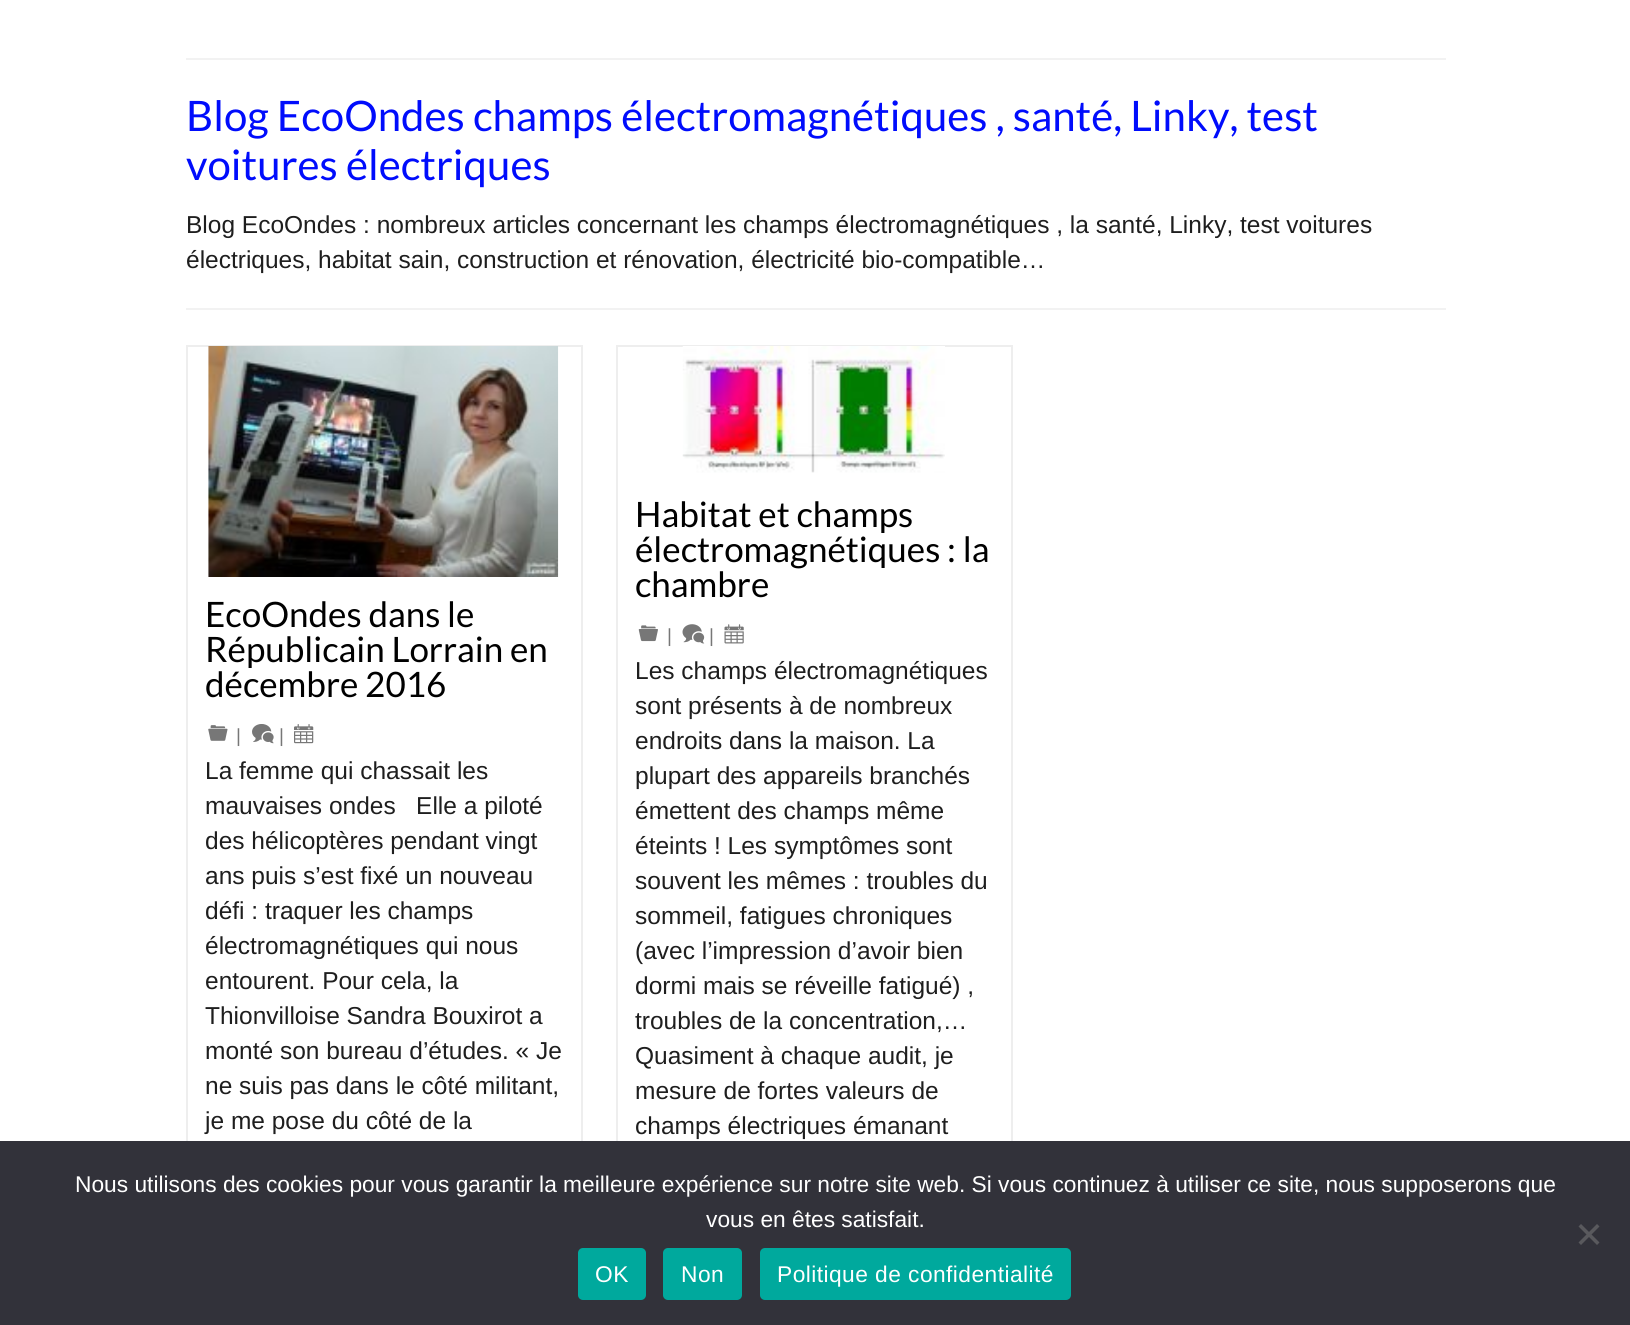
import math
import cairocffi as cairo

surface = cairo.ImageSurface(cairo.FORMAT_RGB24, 1630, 1325)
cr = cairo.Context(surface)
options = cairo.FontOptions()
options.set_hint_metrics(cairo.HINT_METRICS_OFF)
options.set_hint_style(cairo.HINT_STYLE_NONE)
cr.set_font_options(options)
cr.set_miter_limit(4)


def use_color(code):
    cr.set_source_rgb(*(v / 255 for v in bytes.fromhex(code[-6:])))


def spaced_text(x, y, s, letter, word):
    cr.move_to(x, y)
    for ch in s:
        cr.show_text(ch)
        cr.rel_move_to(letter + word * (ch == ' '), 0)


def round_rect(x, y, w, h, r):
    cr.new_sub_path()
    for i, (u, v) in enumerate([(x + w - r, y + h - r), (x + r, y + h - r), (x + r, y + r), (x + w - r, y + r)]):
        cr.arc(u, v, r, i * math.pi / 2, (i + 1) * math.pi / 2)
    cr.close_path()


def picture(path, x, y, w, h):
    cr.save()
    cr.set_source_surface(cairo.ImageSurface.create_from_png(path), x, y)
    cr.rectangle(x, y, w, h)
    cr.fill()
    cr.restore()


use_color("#ffffff")
cr.paint()
use_color("#f2f2f2")
cr.rectangle(186, 58, 1260, 2)
cr.fill()
cr.rectangle(186, 308, 1260, 2)
cr.fill()
cr.select_font_face("Lato")
cr.set_font_size(42)
use_color("#000cfc")
cr.move_to(186, 131)
cr.show_text("Blog EcoOndes champs électromagnétiques , santé, Linky, test")
cr.move_to(186, 180)
cr.show_text("voitures électriques")
cr.select_font_face("Liberation Sans")
cr.set_font_size(24.5)
use_color("#1e1e1e")
cr.move_to(186, 233)
cr.show_text("Blog EcoOndes : nombreux articles concernant les champs électromagnétiques , la santé, Linky, test voitures")
cr.move_to(186, 268)
cr.show_text("électriques, habitat sain, construction et rénovation, électricité bio-compatible…")
cr.rectangle(187, 346, 395, 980)
use_color("#eeeeee")
cr.stroke()
picture("img1.png", 208, 346, 351, 231)
cr.select_font_face("Lato")
cr.set_font_size(35)
use_color("#000000")
cr.move_to(205, 627)
cr.show_text("EcoOndes dans le")
cr.move_to(205, 662)
cr.show_text("Républicain Lorrain en")
cr.move_to(205, 697)
cr.show_text("décembre 2016")
picture("img2.png", 208, 725, 20, 16)
cr.select_font_face("Liberation Sans")
cr.set_font_size(19)
use_color("#777777")
cr.move_to(236, 742)
cr.show_text("|")
picture("img3.png", 252, 724, 22, 20)
cr.move_to(279, 742)
cr.show_text("|")
picture("img4.png", 294, 724, 20, 20)
cr.set_font_size(24.5)
use_color("#1e1e1e")
cr.move_to(205, 779)
cr.show_text("La femme qui chassait les")
cr.move_to(205, 814)
cr.show_text("mauvaises ondes   Elle a piloté")
cr.move_to(205, 849)
cr.show_text("des hélicoptères pendant vingt")
cr.move_to(205, 884)
cr.show_text("ans puis s’est fixé un nouveau")
cr.move_to(205, 919)
cr.show_text("défi : traquer les champs")
cr.move_to(205, 954)
cr.show_text("électromagnétiques qui nous")
cr.move_to(205, 989)
cr.show_text("entourent. Pour cela, la")
cr.move_to(205, 1024)
cr.show_text("Thionvilloise Sandra Bouxirot a")
cr.move_to(205, 1059)
cr.show_text("monté son bureau d’études. « Je")
cr.move_to(205, 1094)
cr.show_text("ne suis pas dans le côté militant,")
cr.move_to(205, 1129)
cr.show_text("je me pose du côté de la")
cr.rectangle(617, 346, 395, 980)
use_color("#eeeeee")
cr.stroke()
picture("img5.png", 682, 346, 263, 127)
cr.select_font_face("Lato")
cr.set_font_size(35)
use_color("#000000")
cr.move_to(635, 527)
cr.show_text("Habitat et champs")
cr.move_to(635, 562)
cr.show_text("électromagnétiques : la")
cr.move_to(635, 597)
cr.show_text("chambre")
picture("img6.png", 638, 625, 20, 17)
cr.select_font_face("Liberation Sans")
cr.set_font_size(19)
use_color("#777777")
cr.move_to(667, 642)
cr.show_text("|")
picture("img7.png", 682, 624, 23, 20)
cr.move_to(709, 642)
cr.show_text("|")
picture("img8.png", 724, 624, 20, 20)
cr.set_font_size(24.5)
use_color("#1e1e1e")
cr.move_to(635, 679)
cr.show_text("Les champs électromagnétiques")
cr.move_to(635, 714)
cr.show_text("sont présents à de nombreux")
cr.move_to(635, 749)
cr.show_text("endroits dans la maison. La")
cr.move_to(635, 784)
cr.show_text("plupart des appareils branchés")
cr.move_to(635, 819)
cr.show_text("émettent des champs même")
cr.move_to(635, 854)
cr.show_text("éteints ! Les symptômes sont")
cr.move_to(635, 889)
cr.show_text("souvent les mêmes : troubles du")
cr.move_to(635, 924)
cr.show_text("sommeil, fatigues chroniques")
cr.move_to(635, 959)
cr.show_text("(avec l’impression d’avoir bien")
cr.move_to(635, 994)
cr.show_text("dormi mais se réveille fatigué) ,")
cr.move_to(635, 1029)
cr.show_text("troubles de la concentration,…")
cr.move_to(635, 1064)
cr.show_text("Quasiment à chaque audit, je")
cr.move_to(635, 1099)
cr.show_text("mesure de fortes valeurs de")
cr.move_to(635, 1134)
cr.show_text("champs électriques émanant")
use_color("#32323a")
cr.rectangle(0, 1141, 1630, 184)
cr.fill()
cr.set_font_size(22.75)
use_color("#ffffff")
cr.move_to(75, 1192)
cr.show_text("Nous utilisons des cookies pour vous garantir la meilleure expérience sur notre site web. Si vous continuez à utiliser ce site, nous supposerons que")
cr.move_to(706, 1227)
cr.show_text("vous en êtes satisfait.")
use_color("#59595d")
cr.new_path()
cr.move_to(1597, 1224)
cr.line_to(1599.5, 1226.5)
cr.line_to(1581, 1245)
cr.line_to(1578.5, 1242.5)
cr.close_path()
cr.fill()
cr.new_path()
cr.move_to(1578.5, 1226.5)
cr.line_to(1581, 1224)
cr.line_to(1599.5, 1242.5)
cr.line_to(1597, 1245)
cr.close_path()
cr.fill()
use_color("#00a99d")
round_rect(578, 1248, 68, 52, 5)
cr.fill()
use_color("#ffffff")
spaced_text(595, 1282, "OK", 0.45, 0)
use_color("#00a99d")
round_rect(663, 1248, 79, 52, 5)
cr.fill()
use_color("#ffffff")
spaced_text(681, 1282, "Non", 0.45, 0)
use_color("#00a99d")
round_rect(760, 1248, 311, 52, 5)
cr.fill()
use_color("#ffffff")
spaced_text(777, 1282, "Politique de confidentialité", 0.45, 0)
surface.write_to_png("result.png")
